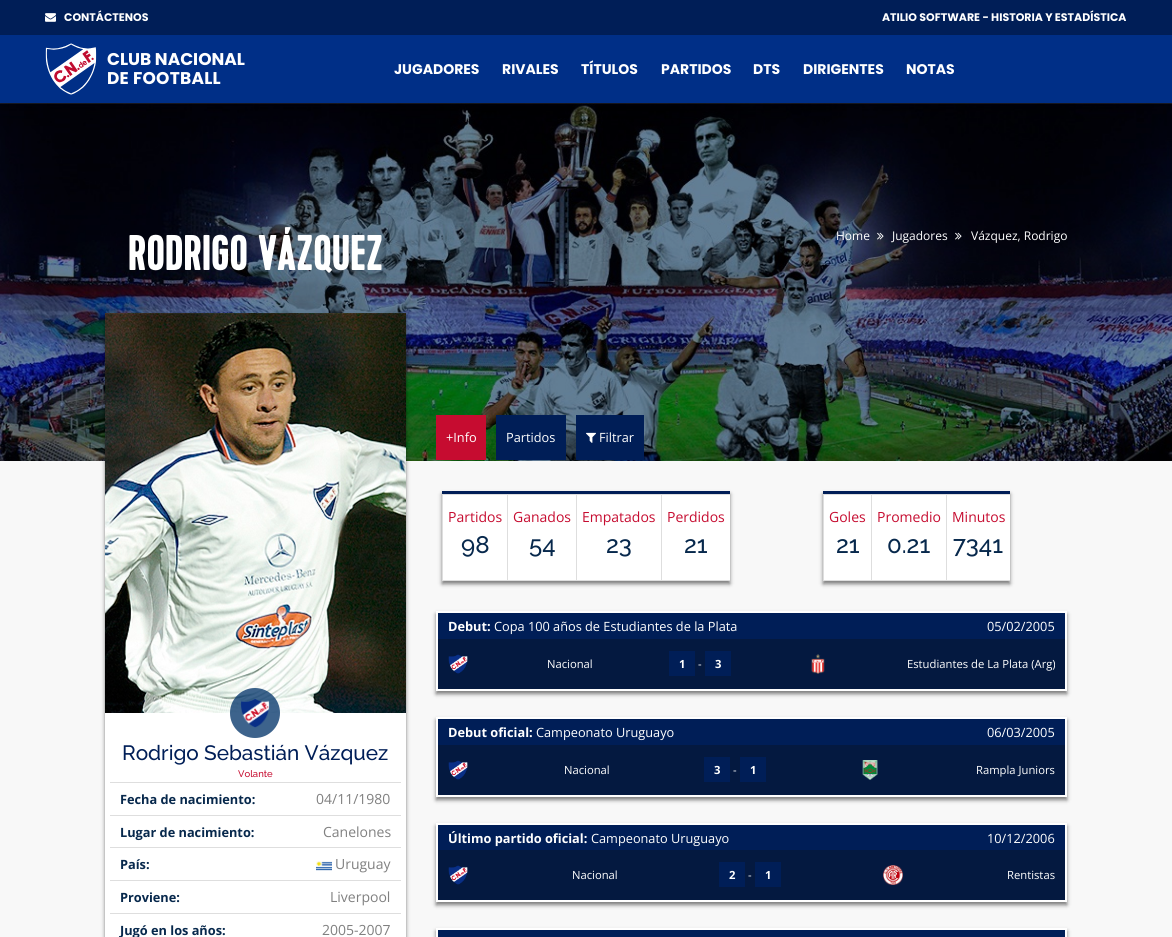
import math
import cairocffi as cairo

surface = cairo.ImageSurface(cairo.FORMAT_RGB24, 1172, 937)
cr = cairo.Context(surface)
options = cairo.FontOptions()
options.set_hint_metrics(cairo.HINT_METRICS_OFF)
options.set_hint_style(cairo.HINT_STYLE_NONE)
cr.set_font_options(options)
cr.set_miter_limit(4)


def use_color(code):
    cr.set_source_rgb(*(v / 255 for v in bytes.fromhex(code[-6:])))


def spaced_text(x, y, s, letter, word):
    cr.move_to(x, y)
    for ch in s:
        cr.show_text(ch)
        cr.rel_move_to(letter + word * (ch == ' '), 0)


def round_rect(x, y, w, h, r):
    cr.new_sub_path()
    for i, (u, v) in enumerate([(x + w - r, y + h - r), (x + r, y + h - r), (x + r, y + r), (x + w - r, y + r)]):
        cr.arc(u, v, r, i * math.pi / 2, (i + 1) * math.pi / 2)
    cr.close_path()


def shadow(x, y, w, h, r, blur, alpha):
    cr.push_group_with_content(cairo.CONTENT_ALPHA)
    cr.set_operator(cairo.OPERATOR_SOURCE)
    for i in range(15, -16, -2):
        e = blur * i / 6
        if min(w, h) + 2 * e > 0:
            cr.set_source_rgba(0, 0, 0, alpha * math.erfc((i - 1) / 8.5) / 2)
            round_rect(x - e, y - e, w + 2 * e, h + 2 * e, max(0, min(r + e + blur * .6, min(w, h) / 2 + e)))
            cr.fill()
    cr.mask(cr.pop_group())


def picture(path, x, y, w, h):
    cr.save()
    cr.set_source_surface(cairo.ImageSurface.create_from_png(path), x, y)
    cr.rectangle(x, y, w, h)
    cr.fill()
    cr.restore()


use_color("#f8f8f8")
cr.paint()
use_color("#001e57")
cr.rectangle(0, 0, 1172, 35)
cr.fill()
picture("img1.png", 45, 13, 11, 9)
cr.select_font_face("Poppins", cairo.FONT_SLANT_NORMAL, cairo.FONT_WEIGHT_BOLD)
cr.set_font_size(11)
use_color("#ffffff")
cr.move_to(64, 21)
cr.show_text("CONTÁCTENOS")
cr.move_to(882, 21)
cr.show_text("ATILIO SOFTWARE - HISTORIA Y ESTADÍSTICA")
picture("img3.png", 0, 103, 1172, 358)
use_color("#000000")
shadow(0, 37, 1172, 68, 0, 2, 0.15)
use_color("#002f87")
cr.rectangle(0, 35, 1172, 68)
cr.fill()
picture("img2.png", 45, 43, 52, 52)
cr.set_font_size(17)
use_color("#ffffff")
cr.move_to(107, 65)
cr.show_text("CLUB NACIONAL")
spaced_text(107, 84, "DE FOOTBALL", 0.25, 0)
cr.set_font_size(14)
cr.move_to(394, 74)
cr.show_text("JUGADORES")
cr.move_to(502, 74)
cr.show_text("RIVALES")
cr.move_to(581, 74)
cr.show_text("TÍTULOS")
cr.move_to(661, 74)
cr.show_text("PARTIDOS")
cr.move_to(753, 74)
cr.show_text("DTS")
cr.move_to(803, 74)
cr.show_text("DIRIGENTES")
cr.move_to(906, 74)
cr.show_text("NOTAS")
cr.select_font_face("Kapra", cairo.FONT_SLANT_NORMAL, cairo.FONT_WEIGHT_BOLD)
cr.set_font_size(50)
cr.move_to(128, 270)
cr.show_text("RODRIGO VÁZQUEZ")
cr.select_font_face("Open Sans")
cr.set_font_size(12)
cr.move_to(836, 240)
cr.show_text("Home")
picture("img4.png", 877, 232, 7, 8)
cr.move_to(892, 240)
cr.show_text("Jugadores")
picture("img5.png", 955, 232, 7, 8)
cr.move_to(971, 240)
cr.show_text("Vázquez, Rodrigo")
use_color("#000000")
shadow(105, 316, 301, 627, 0, 2, 0.5)
use_color("#ffffff")
cr.rectangle(105, 713, 301, 224)
cr.fill()
picture("img6.png", 105, 313, 301, 400)
cr.set_source_rgba(0.051, 0.235, 0.439, 0.8)
cr.arc(255, 713, 25, 0, 2 * math.pi)
cr.fill()
picture("img7.png", 241, 699, 29, 29)
cr.select_font_face("Raleway Medium")
cr.set_font_size(20.75)
use_color("#001e57")
cr.move_to(122, 760)
cr.show_text("Rodrigo Sebastián Vázquez")
cr.set_font_size(9.5)
use_color("#c60c30")
cr.move_to(238, 777)
cr.show_text("Volante")
use_color("#dedede")
cr.rectangle(110, 782, 291, 1)
cr.fill()
cr.select_font_face("Open Sans", cairo.FONT_SLANT_NORMAL, cairo.FONT_WEIGHT_BOLD)
cr.set_font_size(12.75)
use_color("#07284c")
cr.move_to(120, 804)
cr.show_text("Fecha de nacimiento:")
cr.select_font_face("Open Sans")
cr.set_font_size(14)
use_color("#808080")
cr.move_to(316, 804)
cr.show_text("04/11/1980")
use_color("#dedede")
cr.rectangle(110, 815, 291, 1)
cr.fill()
cr.select_font_face("Open Sans", cairo.FONT_SLANT_NORMAL, cairo.FONT_WEIGHT_BOLD)
cr.set_font_size(12.75)
use_color("#07284c")
cr.move_to(120, 837)
cr.show_text("Lugar de nacimiento:")
cr.select_font_face("Open Sans")
cr.set_font_size(14)
use_color("#808080")
cr.move_to(323, 837)
cr.show_text("Canelones")
use_color("#dedede")
cr.rectangle(110, 847, 291, 1)
cr.fill()
cr.select_font_face("Open Sans", cairo.FONT_SLANT_NORMAL, cairo.FONT_WEIGHT_BOLD)
cr.set_font_size(12.75)
use_color("#07284c")
cr.move_to(120, 869)
cr.show_text("País:")
picture("img8.png", 316, 861, 16, 10)
cr.select_font_face("Open Sans")
cr.set_font_size(14)
use_color("#808080")
cr.move_to(335, 869)
cr.show_text("Uruguay")
use_color("#dedede")
cr.rectangle(110, 880, 291, 1)
cr.fill()
cr.select_font_face("Open Sans", cairo.FONT_SLANT_NORMAL, cairo.FONT_WEIGHT_BOLD)
cr.set_font_size(12.75)
use_color("#07284c")
cr.move_to(120, 902)
cr.show_text("Proviene:")
cr.select_font_face("Open Sans")
cr.set_font_size(14)
use_color("#808080")
cr.move_to(330, 902)
cr.show_text("Liverpool")
use_color("#dedede")
cr.rectangle(110, 913, 291, 1)
cr.fill()
cr.select_font_face("Open Sans", cairo.FONT_SLANT_NORMAL, cairo.FONT_WEIGHT_BOLD)
cr.set_font_size(12.75)
use_color("#07284c")
cr.move_to(120, 935)
cr.show_text("Jugó en los años:")
cr.select_font_face("Open Sans")
cr.set_font_size(14)
use_color("#808080")
cr.move_to(322, 935)
cr.show_text("2005-2007")
use_color("#c60c30")
cr.rectangle(436, 415, 50, 45)
cr.fill()
cr.set_font_size(12.75)
use_color("#ffffff")
cr.move_to(446, 442)
cr.show_text("+Info")
use_color("#001e57")
cr.rectangle(496, 415, 70, 45)
cr.fill()
use_color("#ffffff")
cr.move_to(506, 442)
cr.show_text("Partidos")
use_color("#001e57")
cr.rectangle(576, 415, 68, 45)
cr.fill()
picture("img9.png", 586, 432, 10, 11)
use_color("#ffffff")
cr.move_to(599, 442)
cr.show_text("Filtrar")
use_color("#000000")
shadow(442, 494, 288, 90, 0, 2, 0.5)
use_color("#ffffff")
cr.rectangle(443, 495, 287, 85)
cr.fill()
use_color("#001e57")
cr.rectangle(442, 491, 288, 3)
cr.fill()
use_color("#dedede")
cr.rectangle(442, 494, 288, 1)
cr.fill()
cr.rectangle(442, 580, 288, 1)
cr.fill()
cr.rectangle(442, 494, 1, 87)
cr.fill()
cr.set_font_size(14)
use_color("#c60c30")
cr.move_to(448, 522)
cr.show_text("Partidos")
cr.select_font_face("Raleway Medium")
cr.set_font_size(24)
use_color("#07284c")
cr.move_to(461, 553)
cr.show_text("98")
use_color("#dedede")
cr.rectangle(507, 494, 1, 87)
cr.fill()
cr.select_font_face("Open Sans")
cr.set_font_size(14)
use_color("#c60c30")
cr.move_to(513, 522)
cr.show_text("Ganados")
cr.select_font_face("Raleway Medium")
cr.set_font_size(24)
use_color("#07284c")
cr.move_to(529, 553)
cr.show_text("54")
use_color("#dedede")
cr.rectangle(576, 494, 1, 87)
cr.fill()
cr.select_font_face("Open Sans")
cr.set_font_size(14)
use_color("#c60c30")
cr.move_to(582, 522)
cr.show_text("Empatados")
cr.select_font_face("Raleway Medium")
cr.set_font_size(24)
use_color("#07284c")
cr.move_to(606, 553)
cr.show_text("23")
use_color("#dedede")
cr.rectangle(661, 494, 1, 87)
cr.fill()
cr.select_font_face("Open Sans")
cr.set_font_size(14)
use_color("#c60c30")
cr.move_to(667, 522)
cr.show_text("Perdidos")
cr.select_font_face("Raleway Medium")
cr.set_font_size(24)
use_color("#07284c")
cr.move_to(684, 553)
cr.show_text("21")
use_color("#000000")
shadow(823, 494, 187, 90, 0, 2, 0.5)
use_color("#ffffff")
cr.rectangle(824, 495, 186, 85)
cr.fill()
use_color("#001e57")
cr.rectangle(823, 491, 187, 3)
cr.fill()
use_color("#dedede")
cr.rectangle(823, 494, 187, 1)
cr.fill()
cr.rectangle(823, 580, 187, 1)
cr.fill()
cr.rectangle(823, 494, 1, 87)
cr.fill()
cr.select_font_face("Open Sans")
cr.set_font_size(14)
use_color("#c60c30")
cr.move_to(829, 522)
cr.show_text("Goles")
cr.select_font_face("Raleway Medium")
cr.set_font_size(24)
use_color("#07284c")
cr.move_to(836, 553)
cr.show_text("21")
use_color("#dedede")
cr.rectangle(871, 494, 1, 87)
cr.fill()
cr.select_font_face("Open Sans")
cr.set_font_size(14)
use_color("#c60c30")
cr.move_to(877, 522)
cr.show_text("Promedio")
cr.select_font_face("Raleway Medium")
cr.set_font_size(24)
use_color("#07284c")
cr.move_to(887, 553)
cr.show_text("0.21")
use_color("#dedede")
cr.rectangle(946, 494, 1, 87)
cr.fill()
cr.select_font_face("Open Sans")
cr.set_font_size(14)
use_color("#c60c30")
cr.move_to(952, 522)
cr.show_text("Minutos")
cr.select_font_face("Raleway Medium")
cr.set_font_size(24)
use_color("#07284c")
cr.move_to(953, 553)
cr.show_text("7341")
use_color("#000000")
shadow(436, 614, 631, 80, 0, 2, 0.5)
use_color("#ffffff")
cr.rectangle(436, 611, 631, 80)
cr.fill()
use_color("#001e57")
cr.rectangle(438, 613, 627, 26)
cr.fill()
cr.select_font_face("Open Sans", cairo.FONT_SLANT_NORMAL, cairo.FONT_WEIGHT_BOLD)
cr.set_font_size(12.75)
use_color("#ffffff")
cr.move_to(448, 631)
cr.show_text("Debut:")
cr.select_font_face("Open Sans")
cr.move_to(494, 631)
cr.show_text("Copa 100 años de Estudiantes de la Plata")
cr.move_to(987, 631)
cr.show_text("05/02/2005")
use_color("#041940")
cr.rectangle(438, 639, 627, 50)
cr.fill()
picture("img10.png", 448, 654, 20, 20)
cr.set_font_size(11.25)
use_color("#ffffff")
cr.move_to(547, 668)
cr.show_text("Nacional")
use_color("#001e57")
cr.rectangle(669, 651, 26, 25)
cr.fill()
cr.select_font_face("Open Sans", cairo.FONT_SLANT_NORMAL, cairo.FONT_WEIGHT_BOLD)
use_color("#ffffff")
cr.move_to(679, 668)
cr.show_text("1")
cr.select_font_face("Open Sans")
cr.move_to(698, 668)
cr.show_text("-")
use_color("#001e57")
cr.rectangle(705, 651, 26, 25)
cr.fill()
cr.select_font_face("Open Sans", cairo.FONT_SLANT_NORMAL, cairo.FONT_WEIGHT_BOLD)
use_color("#ffffff")
cr.move_to(715, 668)
cr.show_text("3")
picture("img11.png", 811, 654, 14, 20)
cr.select_font_face("Open Sans")
cr.move_to(907, 668)
cr.show_text("Estudiantes de La Plata (Arg)")
use_color("#000000")
shadow(436, 720, 631, 80, 0, 2, 0.5)
use_color("#ffffff")
cr.rectangle(436, 717, 631, 80)
cr.fill()
use_color("#001e57")
cr.rectangle(438, 719, 627, 26)
cr.fill()
cr.select_font_face("Open Sans", cairo.FONT_SLANT_NORMAL, cairo.FONT_WEIGHT_BOLD)
cr.set_font_size(12.75)
use_color("#ffffff")
cr.move_to(448, 737)
cr.show_text("Debut oficial:")
cr.select_font_face("Open Sans")
cr.move_to(536, 737)
cr.show_text("Campeonato Uruguayo")
cr.move_to(987, 737)
cr.show_text("06/03/2005")
use_color("#041940")
cr.rectangle(438, 745, 627, 50)
cr.fill()
picture("img10.png", 448, 760, 20, 20)
cr.set_font_size(11.25)
use_color("#ffffff")
cr.move_to(564, 774)
cr.show_text("Nacional")
use_color("#001e57")
cr.rectangle(704, 757, 26, 25)
cr.fill()
cr.select_font_face("Open Sans", cairo.FONT_SLANT_NORMAL, cairo.FONT_WEIGHT_BOLD)
use_color("#ffffff")
cr.move_to(714, 774)
cr.show_text("3")
cr.select_font_face("Open Sans")
cr.move_to(733, 774)
cr.show_text("-")
use_color("#001e57")
cr.rectangle(740, 757, 26, 25)
cr.fill()
cr.select_font_face("Open Sans", cairo.FONT_SLANT_NORMAL, cairo.FONT_WEIGHT_BOLD)
use_color("#ffffff")
cr.move_to(750, 774)
cr.show_text("1")
picture("img12.png", 862, 760, 16, 20)
cr.select_font_face("Open Sans")
cr.move_to(976, 774)
cr.show_text("Rampla Juniors")
use_color("#000000")
shadow(436, 826, 631, 79, 0, 2, 0.5)
use_color("#ffffff")
cr.rectangle(436, 823, 631, 79)
cr.fill()
use_color("#001e57")
cr.rectangle(438, 825, 627, 25)
cr.fill()
cr.select_font_face("Open Sans", cairo.FONT_SLANT_NORMAL, cairo.FONT_WEIGHT_BOLD)
cr.set_font_size(12.75)
use_color("#ffffff")
cr.move_to(448, 843)
cr.show_text("Último partido oficial:")
cr.select_font_face("Open Sans")
cr.move_to(591, 843)
cr.show_text("Campeonato Uruguayo")
cr.move_to(987, 843)
cr.show_text("10/12/2006")
use_color("#041940")
cr.rectangle(438, 850, 627, 50)
cr.fill()
picture("img10.png", 448, 865, 20, 20)
cr.set_font_size(11.25)
use_color("#ffffff")
cr.move_to(572, 879)
cr.show_text("Nacional")
use_color("#001e57")
cr.rectangle(719, 862, 26, 25)
cr.fill()
cr.select_font_face("Open Sans", cairo.FONT_SLANT_NORMAL, cairo.FONT_WEIGHT_BOLD)
use_color("#ffffff")
cr.move_to(729, 879)
cr.show_text("2")
cr.select_font_face("Open Sans")
cr.move_to(748, 879)
cr.show_text("-")
use_color("#001e57")
cr.rectangle(755, 862, 26, 25)
cr.fill()
cr.select_font_face("Open Sans", cairo.FONT_SLANT_NORMAL, cairo.FONT_WEIGHT_BOLD)
use_color("#ffffff")
cr.move_to(765, 879)
cr.show_text("1")
picture("img13.png", 883, 865, 20, 20)
cr.select_font_face("Open Sans")
cr.move_to(1007, 879)
cr.show_text("Rentistas")
use_color("#000000")
shadow(436, 931, 631, 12, 0, 2, 0.5)
use_color("#ffffff")
cr.rectangle(436, 928, 631, 9)
cr.fill()
use_color("#001e57")
cr.rectangle(438, 930, 627, 7)
cr.fill()
surface.write_to_png("result.png")
